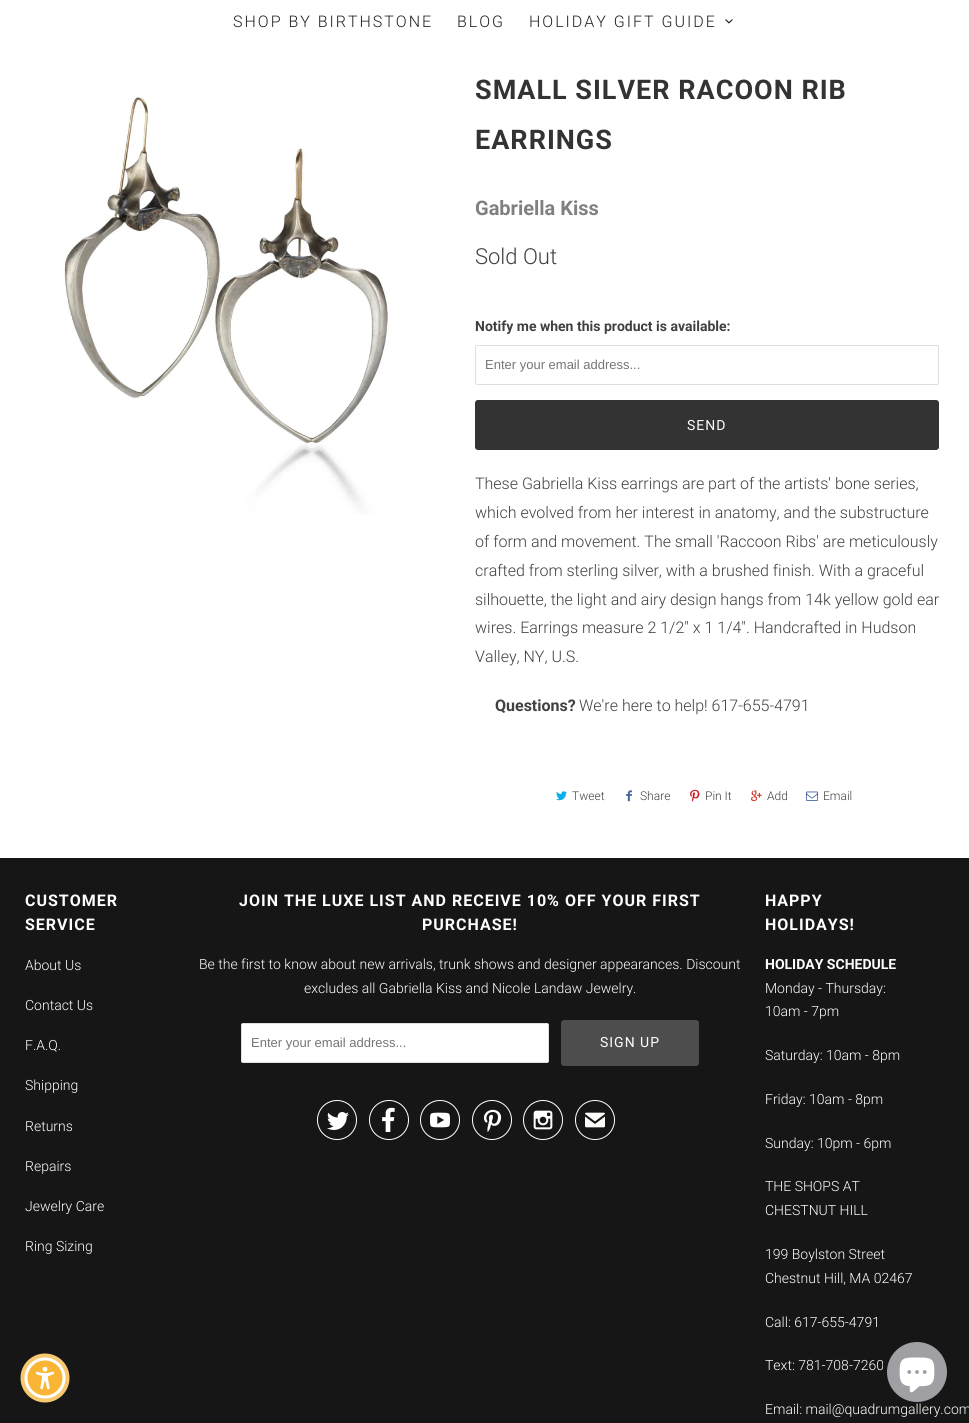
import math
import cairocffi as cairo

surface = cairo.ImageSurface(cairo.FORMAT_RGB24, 969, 1423)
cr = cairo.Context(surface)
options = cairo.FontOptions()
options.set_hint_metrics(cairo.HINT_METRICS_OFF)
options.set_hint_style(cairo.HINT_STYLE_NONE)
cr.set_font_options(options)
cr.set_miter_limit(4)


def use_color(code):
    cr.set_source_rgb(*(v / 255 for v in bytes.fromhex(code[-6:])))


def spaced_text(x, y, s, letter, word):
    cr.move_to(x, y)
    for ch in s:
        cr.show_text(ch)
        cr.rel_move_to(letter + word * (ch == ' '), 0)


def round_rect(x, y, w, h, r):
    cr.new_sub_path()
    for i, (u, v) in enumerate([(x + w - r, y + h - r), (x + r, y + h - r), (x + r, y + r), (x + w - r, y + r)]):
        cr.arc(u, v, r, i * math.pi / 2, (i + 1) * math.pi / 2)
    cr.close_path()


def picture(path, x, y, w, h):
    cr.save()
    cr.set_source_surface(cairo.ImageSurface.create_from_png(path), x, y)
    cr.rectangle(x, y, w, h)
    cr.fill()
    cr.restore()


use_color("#ffffff")
cr.paint()
cr.select_font_face("Roboto Light")
cr.set_font_size(16)
use_color("#222222")
spaced_text(233, 27, "SHOP BY BIRTHSTONE", 2, 0)
spaced_text(457, 27, "BLOG", 2, 0)
spaced_text(529, 27, "HOLIDAY GIFT GUIDE", 2, 0)
picture("img1.png", 725, 19, 8, 5)
picture("img2.png", 64, 97, 324, 417)
cr.select_font_face("Roboto", cairo.FONT_SLANT_NORMAL, cairo.FONT_WEIGHT_BOLD)
cr.set_font_size(27)
use_color("#333333")
spaced_text(475, 99, "SMALL SILVER RACOON RIB", 1, 0)
spaced_text(475, 149, "EARRINGS", 1, 0)
cr.set_font_size(20)
use_color("#808080")
cr.move_to(475, 215)
cr.show_text("Gabriella Kiss")
cr.select_font_face("Roboto Light")
cr.set_font_size(22)
use_color("#404040")
cr.move_to(475, 264)
cr.show_text("Sold Out")
cr.select_font_face("Roboto", cairo.FONT_SLANT_NORMAL, cairo.FONT_WEIGHT_BOLD)
cr.set_font_size(14)
cr.move_to(475, 331)
cr.show_text("Notify me when this product is available:")
round_rect(475.5, 345.5, 463, 39, 1.5)
use_color("#dfdfdf")
cr.set_line_width(1)
cr.stroke()
cr.select_font_face("Liberation Sans")
cr.set_font_size(13)
use_color("#757575")
cr.move_to(485, 369)
cr.show_text("Enter your email address...")
use_color("#333333")
round_rect(475.5, 400.5, 463, 49, 2.5)
cr.fill_preserve()
cr.stroke()
cr.select_font_face("Roboto")
cr.set_font_size(14)
use_color("#fefffd")
spaced_text(687, 430, "SEND", 1, 0)
cr.select_font_face("Roboto Light")
cr.set_font_size(16)
use_color("#404040")
cr.move_to(475, 489)
cr.show_text("These Gabriella Kiss earrings are part of the artists' bone series,")
cr.move_to(475, 518)
cr.show_text("which evolved from her interest in anatomy, and the substructure")
cr.move_to(475, 547)
cr.show_text("of form and movement. The small 'Raccoon Ribs' are meticulously")
cr.move_to(475, 576)
cr.show_text("crafted from sterling silver, with a brushed finish. With a graceful")
cr.move_to(475, 605)
cr.show_text("silhouette, the light and airy design hangs from 14k yellow gold ear")
cr.move_to(475, 633)
cr.show_text("wires. Earrings measure 2 1/2\" x 1 1/4\". Handcrafted in Hudson")
cr.move_to(475, 662)
cr.show_text("Valley, NY, U.S.")
cr.select_font_face("Roboto", cairo.FONT_SLANT_NORMAL, cairo.FONT_WEIGHT_BOLD)
cr.move_to(495, 711)
cr.show_text("Questions?")
cr.select_font_face("Roboto Light")
cr.move_to(579, 711)
cr.show_text("We're here to help! 617-655-4791")
picture("img3.png", 556, 791, 11, 10)
cr.set_font_size(12)
cr.move_to(572, 800)
cr.show_text("Tweet")
picture("img4.png", 626, 790, 6, 12)
cr.move_to(640, 800)
cr.show_text("Share")
picture("img5.png", 690, 789, 10, 13)
cr.move_to(705, 800)
cr.show_text("Pin It")
picture("img6.png", 751, 790, 11, 12)
cr.move_to(767, 800)
cr.show_text("Add")
picture("img7.png", 806, 791, 12, 10)
cr.move_to(823, 800)
cr.show_text("Email")
use_color("#161616")
cr.rectangle(0, 858, 969, 565)
cr.fill()
cr.select_font_face("Roboto", cairo.FONT_SLANT_NORMAL, cairo.FONT_WEIGHT_BOLD)
cr.set_font_size(16)
use_color("#fefffd")
spaced_text(25, 906, "CUSTOMER", 1, 0)
spaced_text(25, 930, "SERVICE", 1, 0)
cr.select_font_face("Roboto Light")
cr.set_font_size(14)
cr.move_to(25, 970)
cr.show_text("About Us")
cr.move_to(25, 1010)
cr.show_text("Contact Us")
cr.move_to(25, 1050)
cr.show_text("F.A.Q.")
cr.move_to(25, 1090)
cr.show_text("Shipping")
cr.move_to(25, 1131)
cr.show_text("Returns")
cr.move_to(25, 1171)
cr.show_text("Repairs")
cr.move_to(25, 1211)
cr.show_text("Jewelry Care")
cr.move_to(25, 1251)
cr.show_text("Ring Sizing")
cr.select_font_face("Roboto", cairo.FONT_SLANT_NORMAL, cairo.FONT_WEIGHT_BOLD)
cr.set_font_size(16)
spaced_text(239, 906, "JOIN THE LUXE LIST AND RECEIVE 10% OFF YOUR FIRST", 1, 0)
spaced_text(422, 930, "PURCHASE!", 1, 0)
cr.select_font_face("Roboto Light")
cr.set_font_size(14)
cr.move_to(199, 969)
cr.show_text("Be the first to know about new arrivals, trunk shows and designer appearances. Discount")
cr.move_to(304, 993)
cr.show_text("excludes all Gabriella Kiss and Nicole Landaw Jewelry.")
use_color("#ffffff")
round_rect(241.5, 1023.5, 307, 39, 1.5)
cr.fill_preserve()
use_color("#dfdfdf")
cr.stroke()
cr.select_font_face("Liberation Sans")
cr.set_font_size(13)
use_color("#757575")
cr.move_to(251, 1047)
cr.show_text("Enter your email address...")
use_color("#4d4d4d")
round_rect(561.5, 1020.5, 137, 45, 2.5)
cr.fill_preserve()
cr.stroke()
cr.select_font_face("Roboto")
cr.set_font_size(14)
use_color("#fefffd")
spaced_text(600, 1047, "SIGN UP", 1, 0)
picture("img8.png", 317, 1100, 40, 40)
picture("img9.png", 369, 1100, 40, 40)
picture("img10.png", 420, 1100, 40, 40)
picture("img11.png", 472, 1100, 40, 40)
picture("img12.png", 523, 1100, 40, 40)
cr.select_font_face("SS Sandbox")
cr.set_font_size(40)
cr.move_to(575, 1140)
cr.show_text("✉")
cr.select_font_face("Roboto", cairo.FONT_SLANT_NORMAL, cairo.FONT_WEIGHT_BOLD)
cr.set_font_size(16)
spaced_text(765, 906, "HAPPY", 1, 0)
spaced_text(765, 930, "HOLIDAYS!", 1, 0)
cr.set_font_size(14)
cr.move_to(765, 969)
cr.show_text("HOLIDAY SCHEDULE")
cr.select_font_face("Roboto Light")
cr.move_to(765, 993)
cr.show_text("Monday - Thursday:")
cr.move_to(765, 1016)
cr.show_text("10am - 7pm")
cr.move_to(765, 1060)
cr.show_text("Saturday: 10am - 8pm")
cr.move_to(765, 1104)
cr.show_text("Friday: 10am - 8pm")
cr.move_to(765, 1148)
cr.show_text("Sunday: 10pm - 6pm")
cr.move_to(765, 1191)
cr.show_text("THE SHOPS AT")
cr.move_to(765, 1215)
cr.show_text("CHESTNUT HILL")
cr.move_to(765, 1259)
cr.show_text("199 Boylston Street")
cr.move_to(765, 1283)
cr.show_text("Chestnut Hill, MA 02467")
cr.move_to(765, 1327)
cr.show_text("Call: 617-655-4791")
cr.move_to(765, 1370)
cr.show_text("Text: 781-708-7260")
cr.move_to(765, 1414)
cr.show_text("Email: mail@quadrumgallery.com")
use_color("#f6c96f")
cr.new_path()
cr.arc(45, 1378, 24.5, 0, 2 * math.pi)
cr.fill()
use_color("#ffffff")
cr.arc(45, 1378, 20.5, 0, 2 * math.pi)
cr.fill()
use_color("#fab534")
cr.arc(45, 1378, 17.5, 0, 2 * math.pi)
cr.fill()
picture("img13.png", 35, 1367, 20, 23)
use_color("#9f9fa4")
cr.arc(917, 1372, 30, 0, 2 * math.pi)
cr.fill()
picture("img14.png", 899, 1357, 36, 36)
surface.write_to_png("result.png")
